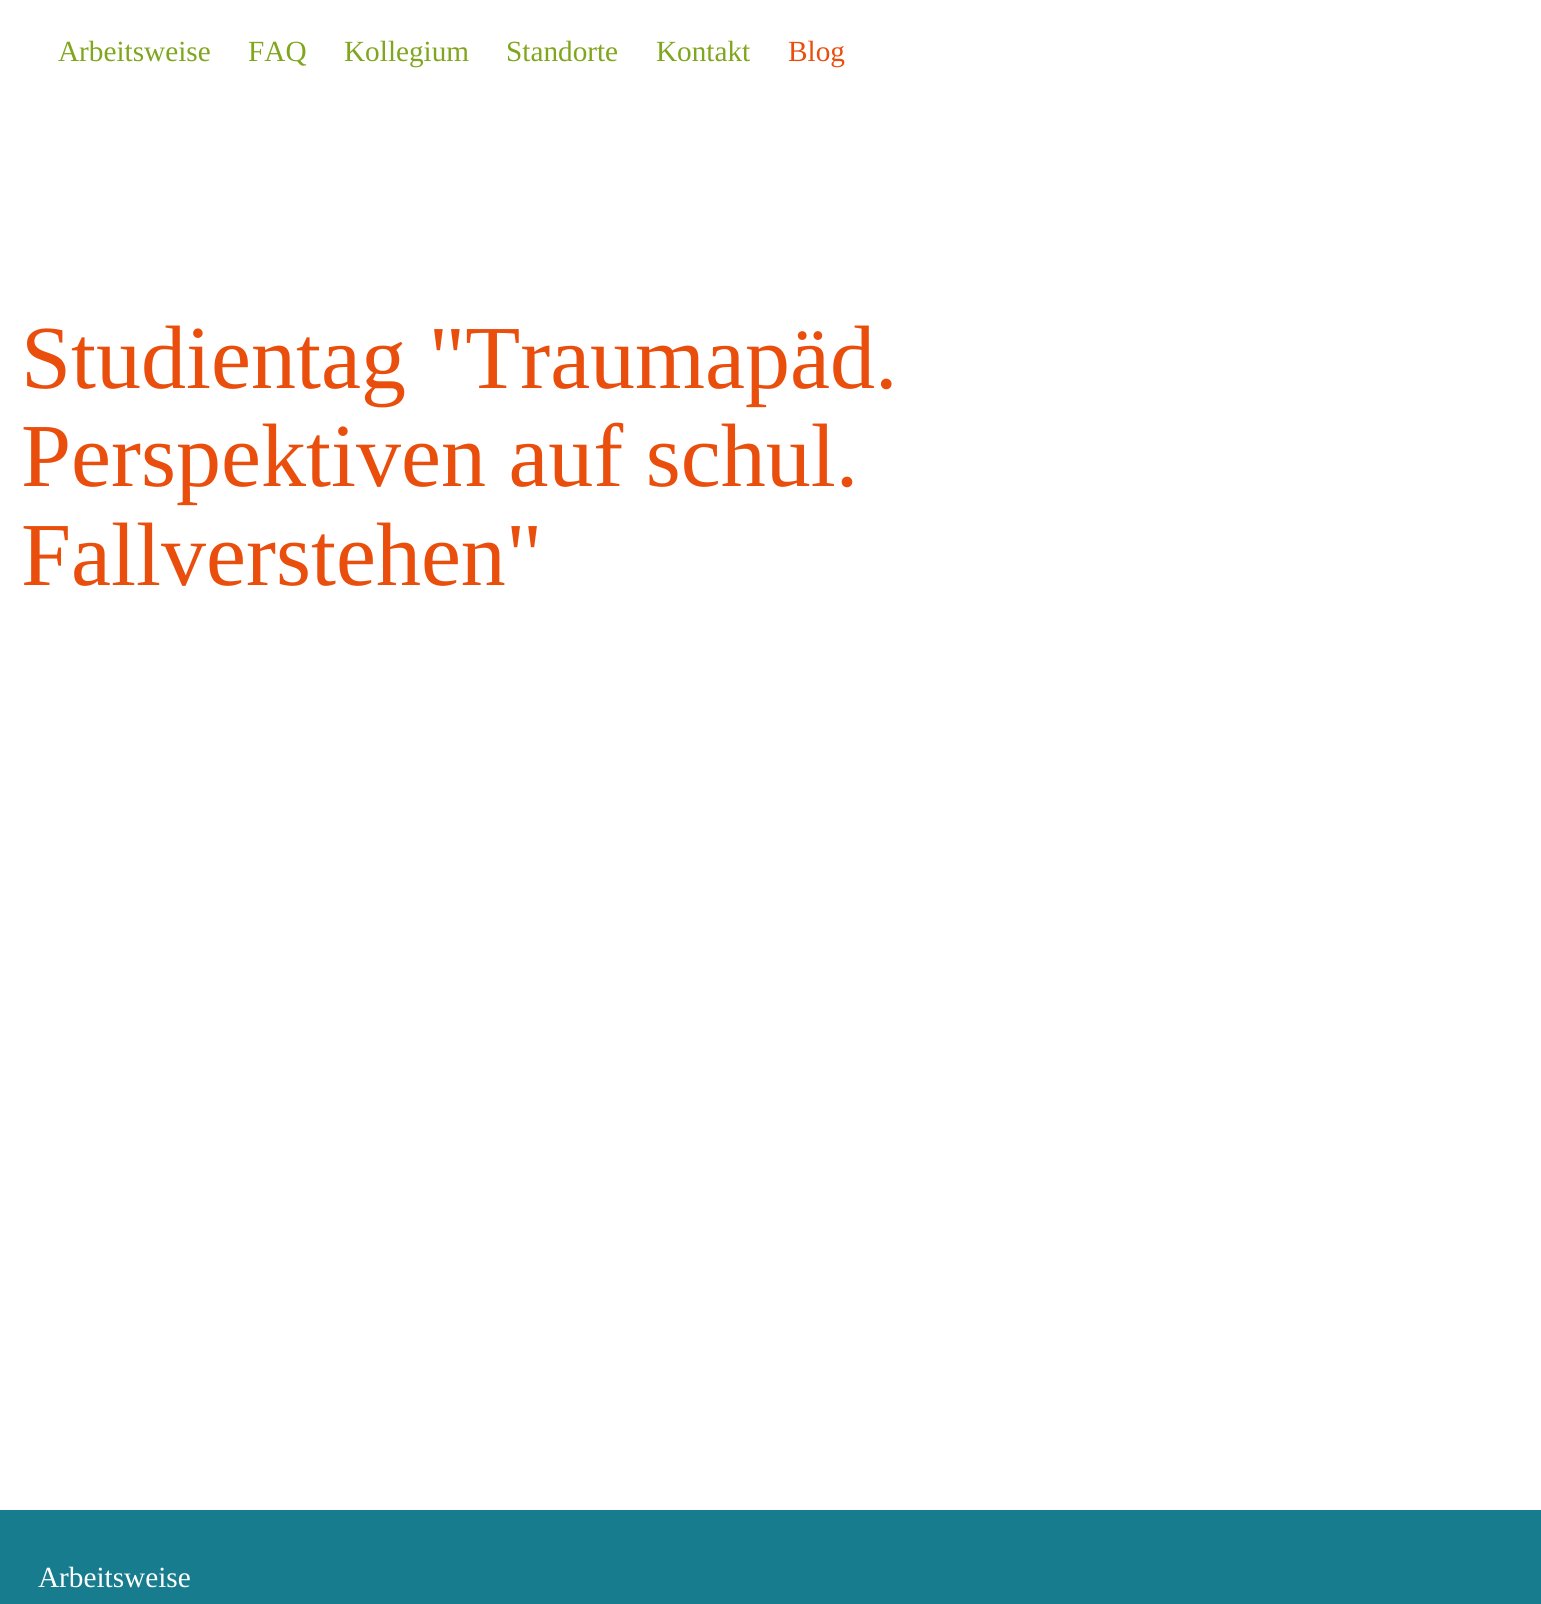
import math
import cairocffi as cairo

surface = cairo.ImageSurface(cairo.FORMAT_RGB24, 1541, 1604)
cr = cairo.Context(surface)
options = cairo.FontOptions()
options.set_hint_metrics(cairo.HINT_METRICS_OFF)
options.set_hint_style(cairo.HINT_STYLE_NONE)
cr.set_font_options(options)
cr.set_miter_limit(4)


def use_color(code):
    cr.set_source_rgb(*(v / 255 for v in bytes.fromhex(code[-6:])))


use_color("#ffffff")
cr.paint()
cr.select_font_face("Liberation Serif")
cr.set_font_size(29.25)
use_color("#7fa61c")
cr.move_to(58, 61)
cr.show_text("Arbeitsweise")
cr.move_to(248, 61)
cr.show_text("FAQ")
cr.move_to(344, 61)
cr.show_text("Kollegium")
cr.move_to(506, 61)
cr.show_text("Standorte")
cr.move_to(656, 61)
cr.show_text("Kontakt")
use_color("#e94e0d")
cr.move_to(788, 61)
cr.show_text("Blog")
cr.set_font_size(90)
cr.move_to(21, 388)
cr.show_text("Studientag \"Traumapäd.")
cr.move_to(21, 486)
cr.show_text("Perspektiven auf schul.")
cr.move_to(21, 585)
cr.show_text("Fallverstehen\"")
use_color("#167c8e")
cr.rectangle(0, 1510, 1541, 94)
cr.fill()
cr.set_font_size(29.25)
use_color("#ffffff")
cr.move_to(38, 1587)
cr.show_text("Arbeitsweise")
surface.write_to_png("result.png")
